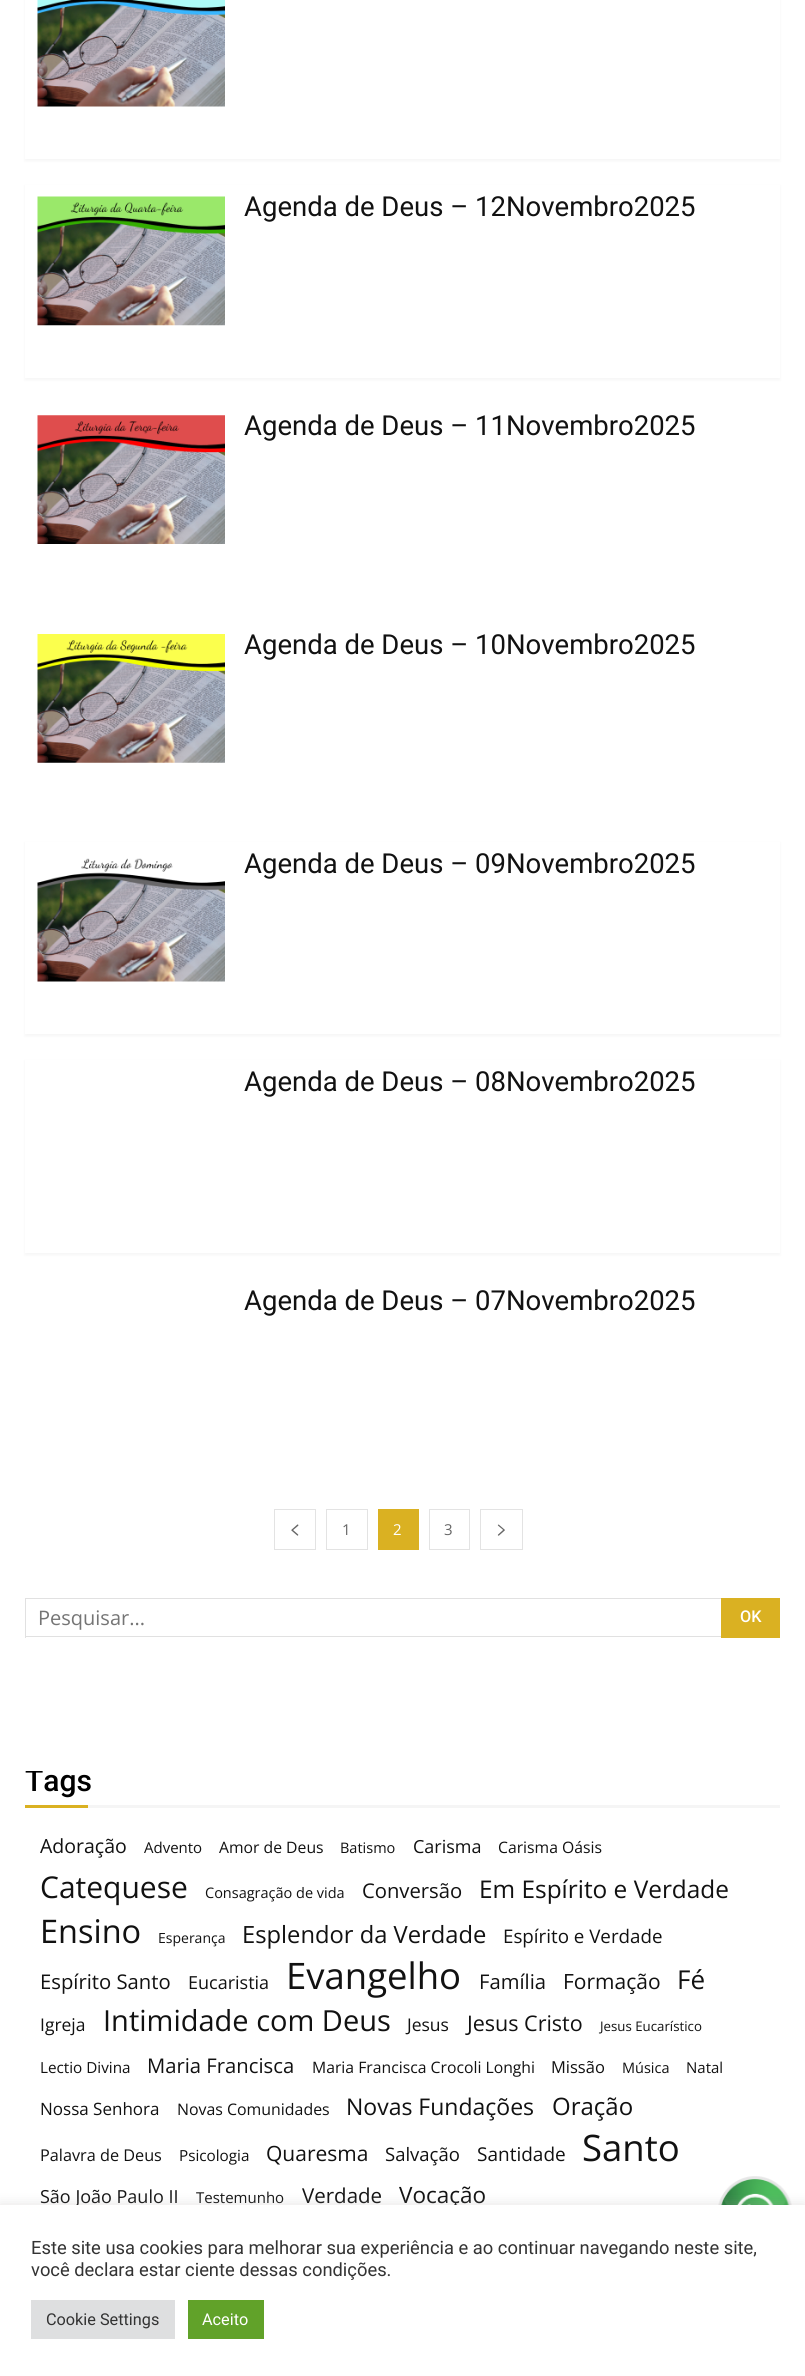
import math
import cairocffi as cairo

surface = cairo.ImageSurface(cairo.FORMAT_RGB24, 805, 2376)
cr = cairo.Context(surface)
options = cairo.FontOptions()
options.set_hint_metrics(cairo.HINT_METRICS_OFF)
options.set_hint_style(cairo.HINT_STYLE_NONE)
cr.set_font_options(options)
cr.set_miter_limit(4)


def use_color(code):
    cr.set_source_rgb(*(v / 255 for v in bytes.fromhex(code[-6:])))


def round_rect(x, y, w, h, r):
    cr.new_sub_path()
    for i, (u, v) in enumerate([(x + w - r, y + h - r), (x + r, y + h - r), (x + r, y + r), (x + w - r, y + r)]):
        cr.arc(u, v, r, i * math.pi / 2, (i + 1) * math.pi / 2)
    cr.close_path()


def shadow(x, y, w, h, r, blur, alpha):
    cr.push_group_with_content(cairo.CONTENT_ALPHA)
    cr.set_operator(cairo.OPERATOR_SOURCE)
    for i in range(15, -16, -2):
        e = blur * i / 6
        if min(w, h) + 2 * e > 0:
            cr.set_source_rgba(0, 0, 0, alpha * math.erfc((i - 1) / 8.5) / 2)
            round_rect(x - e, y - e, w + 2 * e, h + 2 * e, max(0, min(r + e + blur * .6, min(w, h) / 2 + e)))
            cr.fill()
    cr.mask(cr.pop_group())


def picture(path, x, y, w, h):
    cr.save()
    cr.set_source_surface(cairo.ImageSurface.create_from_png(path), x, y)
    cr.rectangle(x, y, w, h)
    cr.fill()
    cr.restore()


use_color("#ffffff")
cr.paint()
use_color("#000000")
shadow(25, -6, 755, 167, 0, 2, 0.04)
use_color("#ffffff")
cr.rectangle(25, 0, 755, 159)
cr.fill()
picture("img1.png", 37, 0, 188, 107)
use_color("#000000")
shadow(25, 186, 755, 194, 0, 2, 0.04)
use_color("#ffffff")
cr.rectangle(25, 185, 755, 193)
cr.fill()
picture("img2.png", 37, 196, 188, 130)
cr.select_font_face("Roboto")
cr.set_font_size(27.5)
use_color("#111111")
cr.move_to(244, 216)
cr.show_text("Agenda de Deus – 12Novembro2025")
picture("img3.png", 37, 415, 188, 129)
cr.move_to(244, 435)
cr.show_text("Agenda de Deus – 11Novembro2025")
picture("img4.png", 37, 634, 188, 129)
cr.move_to(244, 654)
cr.show_text("Agenda de Deus – 10Novembro2025")
use_color("#000000")
shadow(25, 843, 755, 193, 0, 2, 0.04)
use_color("#ffffff")
cr.rectangle(25, 842, 755, 192)
cr.fill()
picture("img5.png", 37, 858, 188, 124)
use_color("#111111")
cr.move_to(244, 873)
cr.show_text("Agenda de Deus – 09Novembro2025")
use_color("#000000")
shadow(25, 1061, 755, 194, 0, 2, 0.04)
use_color("#ffffff")
cr.rectangle(25, 1060, 755, 193)
cr.fill()
use_color("#111111")
cr.move_to(244, 1091)
cr.show_text("Agenda de Deus – 08Novembro2025")
cr.move_to(244, 1310)
cr.show_text("Agenda de Deus – 07Novembro2025")
cr.rectangle(274.5, 1509.5, 41, 40)
use_color("#e3e3e3")
cr.set_line_width(1)
cr.stroke()
picture("img6.png", 291, 1524, 8, 12)
cr.rectangle(326.5, 1509.5, 41, 40)
cr.stroke()
cr.select_font_face("Open Sans")
cr.set_font_size(15)
use_color("#666666")
cr.move_to(342, 1535)
cr.show_text("1")
use_color("#dab122")
cr.rectangle(378, 1509, 41, 41)
cr.fill()
use_color("#ffffff")
cr.move_to(393, 1535)
cr.show_text("2")
cr.rectangle(429.5, 1509.5, 40, 40)
use_color("#e3e3e3")
cr.stroke()
use_color("#666666")
cr.move_to(444, 1535)
cr.show_text("3")
cr.rectangle(480.5, 1509.5, 42, 40)
use_color("#e3e3e3")
cr.stroke()
picture("img7.png", 497, 1524, 8, 12)
use_color("#e1e1e1")
cr.rectangle(25, 1598, 696, 1)
cr.fill()
cr.rectangle(25, 1636, 696, 1)
cr.fill()
cr.rectangle(25, 1598, 1, 40)
cr.fill()
cr.set_font_size(20)
use_color("#757575")
cr.move_to(38, 1625)
cr.show_text("Pesquisar...")
use_color("#dab122")
cr.rectangle(721, 1598, 59, 40)
cr.fill()
cr.select_font_face("Roboto Medium")
cr.set_font_size(16.25)
use_color("#ffffff")
cr.move_to(740, 1622)
cr.show_text("OK")
cr.save()
cr.rectangle(25, 1771, 755, 452)
cr.clip()
cr.set_font_size(30)
use_color("#000000")
cr.move_to(25, 1791)
cr.show_text("Tags")
cr.restore()
use_color("#dab122")
cr.rectangle(25, 1805, 63, 3)
cr.fill()
use_color("#f5f5f5")
cr.rectangle(88, 1805, 692, 3)
cr.fill()
cr.select_font_face("Open Sans")
cr.set_font_size(19.5)
use_color("#111111")
cr.move_to(40, 1853)
cr.show_text("Adoração")
cr.set_font_size(15)
cr.move_to(144, 1853)
cr.show_text("Advento")
cr.set_font_size(15.75)
cr.move_to(219, 1853)
cr.show_text("Amor de Deus")
cr.set_font_size(14.5)
cr.move_to(340, 1853)
cr.show_text("Batismo")
cr.set_font_size(18)
cr.move_to(413, 1853)
cr.show_text("Carisma")
cr.set_font_size(15.75)
cr.move_to(498, 1853)
cr.show_text("Carisma Oásis")
cr.set_font_size(30)
cr.move_to(40, 1898)
cr.show_text("Catequese")
cr.set_font_size(14.5)
cr.move_to(205, 1898)
cr.show_text("Consagração de vida")
cr.set_font_size(20.25)
cr.move_to(362, 1898)
cr.show_text("Conversão")
cr.set_font_size(24.4)
cr.move_to(479, 1898)
cr.show_text("Em Espírito e Verdade")
cr.set_font_size(32.5)
cr.move_to(40, 1943)
cr.show_text("Ensino")
cr.set_font_size(14)
cr.move_to(158, 1943)
cr.show_text("Esperança")
cr.set_font_size(23.75)
cr.move_to(242, 1943)
cr.show_text("Esplendor da Verdade")
cr.set_font_size(18.75)
cr.move_to(503, 1943)
cr.show_text("Espírito e Verdade")
cr.set_font_size(20.25)
cr.move_to(40, 1989)
cr.show_text("Espírito Santo")
cr.set_font_size(18)
cr.move_to(188, 1989)
cr.show_text("Eucaristia")
cr.set_font_size(36.5)
cr.move_to(286, 1989)
cr.show_text("Evangelho")
cr.set_font_size(20.25)
cr.move_to(479, 1989)
cr.show_text("Família")
cr.set_font_size(21)
cr.move_to(563, 1989)
cr.show_text("Formação")
cr.set_font_size(26)
cr.move_to(677, 1989)
cr.show_text("Fé")
cr.set_font_size(17.5)
cr.move_to(40, 2031)
cr.show_text("Igreja")
cr.set_font_size(29)
cr.move_to(103, 2031)
cr.show_text("Intimidade com Deus")
cr.set_font_size(17.5)
cr.move_to(407, 2031)
cr.show_text("Jesus")
cr.set_font_size(21.5)
cr.move_to(467, 2031)
cr.show_text("Jesus Cristo")
cr.set_font_size(13.25)
cr.move_to(600, 2031)
cr.show_text("Jesus Eucarístico")
cr.set_font_size(15.25)
cr.move_to(40, 2073)
cr.show_text("Lectio Divina")
cr.set_font_size(20.25)
cr.move_to(147, 2073)
cr.show_text("Maria Francisca")
cr.set_font_size(15.75)
cr.move_to(312, 2073)
cr.show_text("Maria Francisca Crocoli Longhi")
cr.set_font_size(16.5)
cr.move_to(551, 2073)
cr.show_text("Missão")
cr.set_font_size(14.5)
cr.move_to(622, 2073)
cr.show_text("Música")
cr.set_font_size(15)
cr.move_to(686, 2073)
cr.show_text("Natal")
cr.set_font_size(17)
cr.move_to(40, 2115)
cr.show_text("Nossa Senhora")
cr.set_font_size(15.9)
cr.move_to(177, 2115)
cr.show_text("Novas Comunidades")
cr.set_font_size(23)
cr.move_to(346, 2115)
cr.show_text("Novas Fundações")
cr.set_font_size(24)
cr.move_to(552, 2115)
cr.show_text("Oração")
cr.set_font_size(16.25)
cr.move_to(40, 2161)
cr.show_text("Palavra de Deus")
cr.set_font_size(15.25)
cr.move_to(179, 2161)
cr.show_text("Psicologia")
cr.set_font_size(21)
cr.move_to(266, 2161)
cr.show_text("Quaresma")
cr.set_font_size(18.5)
cr.move_to(385, 2161)
cr.show_text("Salvação")
cr.set_font_size(19)
cr.move_to(477, 2161)
cr.show_text("Santidade")
cr.set_font_size(36.5)
cr.move_to(582, 2161)
cr.show_text("Santo")
cr.set_font_size(18)
cr.move_to(40, 2203)
cr.show_text("São João Paulo II")
cr.set_font_size(15)
cr.move_to(196, 2203)
cr.show_text("Testemunho")
cr.set_font_size(20.5)
cr.move_to(302, 2203)
cr.show_text("Verdade")
cr.set_font_size(22.5)
cr.move_to(399, 2203)
cr.show_text("Vocação")
picture("img8.png", 718, 2176, 74, 29)
use_color("#acabab")
shadow(0, 2204, 805, 171, 0, 6, 0.3)
use_color("#ffffff")
cr.rectangle(0, 2205, 805, 171)
cr.fill()
cr.select_font_face("Roboto")
cr.set_font_size(18.35)
use_color("#333333")
cr.move_to(31, 2254)
cr.show_text("Este site usa cookies para melhorar sua experiência e ao continuar navegando neste site,")
cr.move_to(31, 2276)
cr.show_text("você declara estar ciente dessas condições.")
use_color("#dedfe0")
cr.rectangle(31, 2300, 144, 39)
cr.fill()
cr.set_font_size(16.25)
use_color("#333333")
cr.move_to(46, 2325)
cr.show_text("Cookie Settings")
use_color("#61a229")
cr.rectangle(188, 2300, 76, 39)
cr.fill()
use_color("#ffffff")
cr.move_to(202, 2325)
cr.show_text("Aceito")
surface.write_to_png("result.png")
